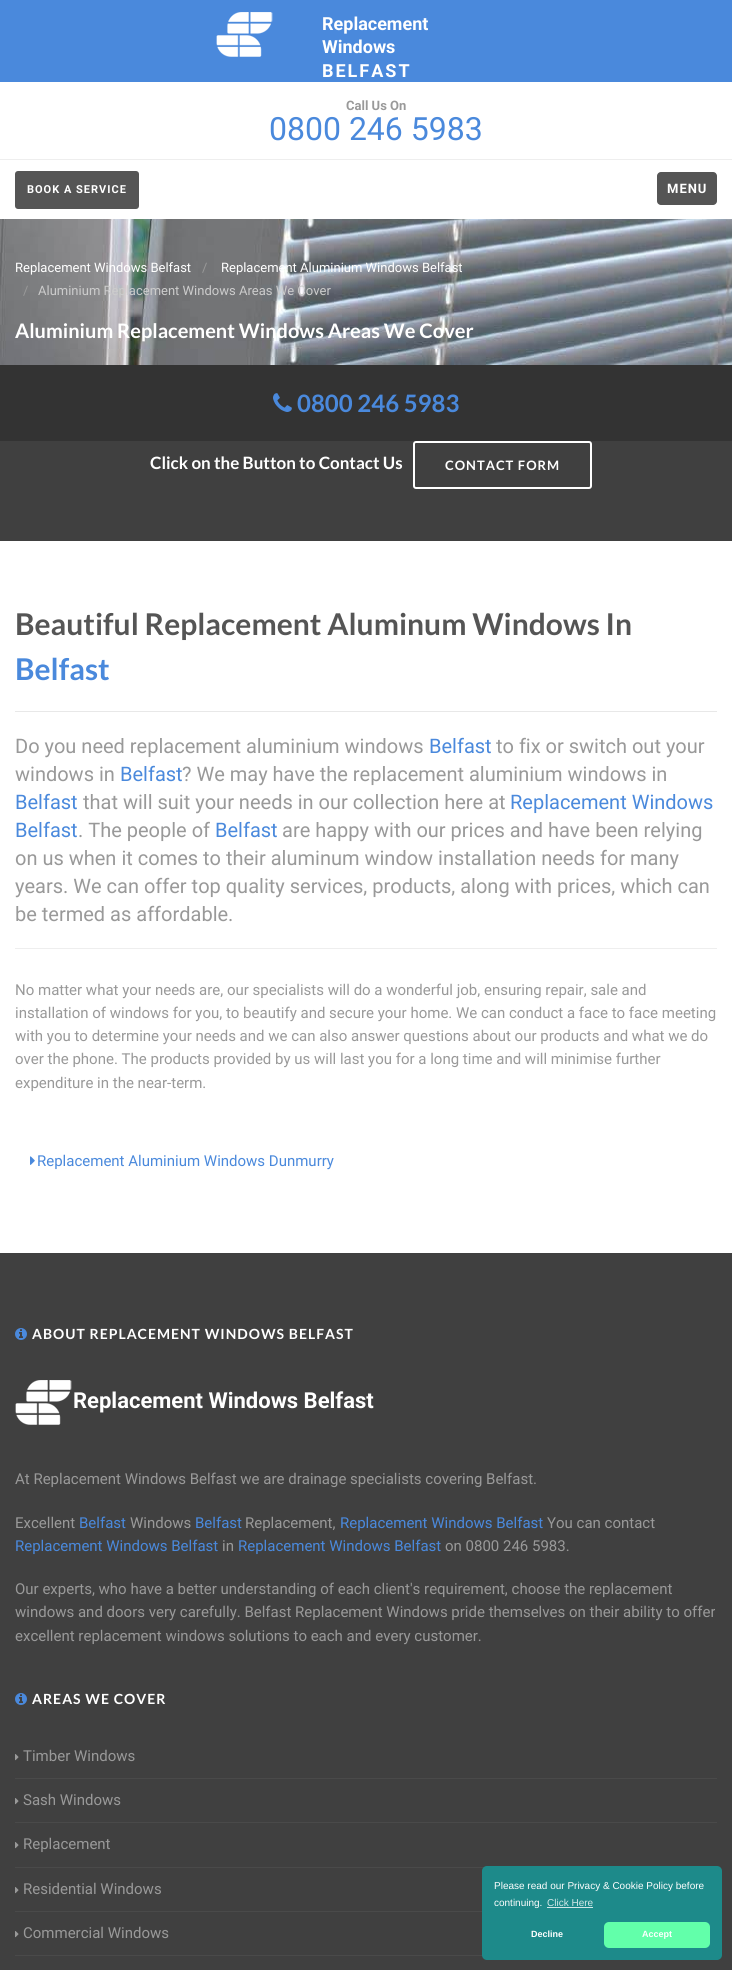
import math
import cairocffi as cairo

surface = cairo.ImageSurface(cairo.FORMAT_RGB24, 732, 1970)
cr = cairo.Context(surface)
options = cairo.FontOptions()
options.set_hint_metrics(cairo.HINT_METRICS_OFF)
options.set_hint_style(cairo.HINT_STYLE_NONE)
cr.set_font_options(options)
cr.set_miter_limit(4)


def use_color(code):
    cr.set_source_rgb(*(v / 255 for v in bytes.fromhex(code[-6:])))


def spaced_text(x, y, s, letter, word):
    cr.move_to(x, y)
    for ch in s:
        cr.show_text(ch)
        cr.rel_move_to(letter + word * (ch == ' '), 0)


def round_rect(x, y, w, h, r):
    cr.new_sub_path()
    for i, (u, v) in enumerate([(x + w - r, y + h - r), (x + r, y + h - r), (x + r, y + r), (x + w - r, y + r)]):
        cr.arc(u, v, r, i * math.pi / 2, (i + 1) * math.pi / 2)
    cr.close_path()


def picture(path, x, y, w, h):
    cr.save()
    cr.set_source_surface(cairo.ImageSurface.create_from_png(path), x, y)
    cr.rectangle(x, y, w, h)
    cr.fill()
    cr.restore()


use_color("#ffffff")
cr.paint()
use_color("#4a89dc")
cr.rectangle(0, 0, 732, 82)
cr.fill()
picture("img1.png", 216, 12, 57, 45)
cr.select_font_face("Roboto", cairo.FONT_SLANT_NORMAL, cairo.FONT_WEIGHT_BOLD)
cr.set_font_size(18)
use_color("#ffffff")
cr.move_to(322, 30)
cr.show_text("Replacement")
cr.move_to(322, 53)
cr.show_text("Windows")
spaced_text(322, 77, "BELFAST", 2, 0)
cr.set_font_size(13)
use_color("#999999")
cr.move_to(346, 110)
cr.show_text("Call Us On")
cr.select_font_face("Roboto")
cr.set_font_size(32)
use_color("#4a89dc")
cr.move_to(269, 140)
cr.show_text("0800 246 5983")
use_color("#eeeeee")
cr.rectangle(0, 159, 732, 1)
cr.fill()
use_color("#555555")
round_rect(15, 171, 124, 38, 3)
cr.fill()
cr.select_font_face("Roboto", cairo.FONT_SLANT_NORMAL, cairo.FONT_WEIGHT_BOLD)
cr.set_font_size(11)
use_color("#ffffff")
spaced_text(27, 193, "BOOK A SERVICE", 1, 0)
use_color("#555555")
round_rect(657, 172, 60, 33, 4)
cr.fill()
cr.set_font_size(13)
use_color("#ffffff")
spaced_text(667, 193, "MENU", 1, 0)
picture("img2.png", 0, 219, 732, 146)
cr.select_font_face("Roboto")
cr.move_to(15, 272)
cr.show_text("Replacement Windows Belfast")
use_color("#999999")
cr.move_to(202, 272)
cr.show_text("/")
use_color("#ffffff")
cr.move_to(221, 272)
cr.show_text("Replacement Aluminium Windows Belfast")
use_color("#999999")
cr.move_to(23, 295)
cr.show_text("/")
use_color("#cccccc")
cr.move_to(38, 295)
cr.show_text("Aluminium Replacement Windows Areas We Cover")
cr.select_font_face("Lato", cairo.FONT_SLANT_NORMAL, cairo.FONT_WEIGHT_BOLD)
cr.set_font_size(20)
use_color("#ffffff")
cr.move_to(15, 338)
cr.show_text("Aluminium Replacement Windows Areas We Cover")
use_color("#404040")
cr.rectangle(0, 441, 732, 100)
cr.fill()
use_color("#333333")
cr.rectangle(0, 365, 732, 76)
cr.fill()
picture("img3.png", 273, 393, 19, 19)
cr.set_font_size(24)
use_color("#4a89dc")
cr.move_to(297, 412)
cr.show_text("0800 246 5983")
cr.set_font_size(17)
use_color("#ffffff")
cr.move_to(150, 469)
cr.show_text("Click on the Button to Contact Us")
round_rect(414, 442, 177, 46, 2)
cr.stroke()
cr.set_font_size(13)
spaced_text(445, 470, "CONTACT FORM", 1, 0)
cr.set_font_size(30)
use_color("#555555")
cr.move_to(15, 635)
cr.show_text("Beautiful Replacement Aluminum Windows In")
use_color("#4a89dc")
cr.move_to(15, 680)
cr.show_text("Belfast")
use_color("#e8e8e8")
cr.rectangle(15, 711, 702, 1)
cr.fill()
cr.select_font_face("Roboto")
cr.set_font_size(20)
use_color("#999999")
cr.move_to(15, 753)
cr.show_text("Do you need replacement aluminium windows")
use_color("#4a89dc")
cr.move_to(429, 753)
cr.show_text("Belfast")
use_color("#999999")
cr.move_to(496, 753)
cr.show_text("to fix or switch out your")
cr.move_to(15, 781)
cr.show_text("windows in")
use_color("#4a89dc")
cr.move_to(120, 781)
cr.show_text("Belfast")
use_color("#999999")
cr.move_to(182, 781)
cr.show_text("? We may have the replacement aluminium windows in")
use_color("#4a89dc")
cr.move_to(15, 809)
cr.show_text("Belfast")
use_color("#999999")
cr.move_to(83, 809)
cr.show_text("that will suit your needs in our collection here at")
use_color("#4a89dc")
cr.move_to(510, 809)
cr.show_text("Replacement Windows")
cr.move_to(15, 837)
cr.show_text("Belfast")
use_color("#999999")
cr.move_to(78, 837)
cr.show_text(". The people of")
use_color("#4a89dc")
cr.move_to(215, 837)
cr.show_text("Belfast")
use_color("#999999")
cr.move_to(282, 837)
cr.show_text("are happy with our prices and have been relying")
cr.move_to(15, 865)
cr.show_text("on us when it comes to their aluminum window installation needs for many")
cr.move_to(15, 893)
cr.show_text("years. We can offer top quality services, products, along with prices, which can")
cr.move_to(15, 921)
cr.show_text("be termed as affordable.")
use_color("#eeeeee")
cr.rectangle(15, 948, 702, 1)
cr.fill()
cr.set_font_size(15)
use_color("#999999")
cr.move_to(15, 995)
cr.show_text("No matter what your needs are, our specialists will do a wonderful job, ensuring repair, sale and")
cr.move_to(15, 1018)
cr.show_text("installation of windows for you, to beautify and secure your home. We can conduct a face to face meeting")
cr.move_to(15, 1041)
cr.show_text("with you to determine your needs and we can also answer questions about our products and what we do")
cr.move_to(15, 1064)
cr.show_text("over the phone. The products provided by us will last you for a long time and will minimise further")
cr.move_to(15, 1088)
cr.show_text("expenditure in the near-term.")
picture("img4.png", 30, 1156, 5, 9)
use_color("#4a89dc")
cr.move_to(37, 1166)
cr.show_text("Replacement Aluminium Windows Dunmurry")
use_color("#404040")
cr.rectangle(0, 1253, 732, 717)
cr.fill()
picture("img5.png", 15, 1328, 12, 12)
cr.select_font_face("Lato", cairo.FONT_SLANT_NORMAL, cairo.FONT_WEIGHT_BOLD)
cr.set_font_size(14)
use_color("#ffffff")
spaced_text(32, 1339, "ABOUT REPLACEMENT WINDOWS BELFAST", 1, 0)
picture("img6.png", 15, 1380, 57, 45)
cr.select_font_face("Roboto", cairo.FONT_SLANT_NORMAL, cairo.FONT_WEIGHT_BOLD)
cr.set_font_size(22)
cr.move_to(73, 1408)
cr.show_text("Replacement Windows Belfast")
cr.select_font_face("Roboto")
cr.set_font_size(15)
use_color("#999999")
cr.move_to(15, 1484)
cr.show_text("At Replacement Windows Belfast we are drainage specialists covering Belfast.")
cr.move_to(15, 1528)
cr.show_text("Excellent")
use_color("#4a89dc")
cr.move_to(79, 1528)
cr.show_text("Belfast")
use_color("#999999")
cr.move_to(130, 1528)
cr.show_text("Windows")
use_color("#4a89dc")
cr.move_to(195, 1528)
cr.show_text("Belfast")
use_color("#999999")
cr.move_to(245, 1528)
cr.show_text("Replacement,")
use_color("#4a89dc")
cr.move_to(340, 1528)
cr.show_text("Replacement Windows Belfast")
use_color("#999999")
cr.move_to(547, 1528)
cr.show_text("You can contact")
use_color("#4a89dc")
cr.move_to(15, 1551)
cr.show_text("Replacement Windows Belfast")
use_color("#999999")
cr.move_to(222, 1551)
cr.show_text("in")
use_color("#4a89dc")
cr.move_to(238, 1551)
cr.show_text("Replacement Windows Belfast")
use_color("#999999")
cr.move_to(445, 1551)
cr.show_text("on 0800 246 5983.")
cr.move_to(15, 1594)
cr.show_text("Our experts, who have a better understanding of each client's requirement, choose the replacement")
cr.move_to(15, 1617)
cr.show_text("windows and doors very carefully. Belfast Replacement Windows pride themselves on their ability to offer")
cr.move_to(15, 1641)
cr.show_text("excellent replacement windows solutions to each and every customer.")
picture("img5.png", 15, 1693, 12, 12)
cr.select_font_face("Lato", cairo.FONT_SLANT_NORMAL, cairo.FONT_WEIGHT_BOLD)
cr.set_font_size(14)
use_color("#ffffff")
spaced_text(32, 1704, "AREAS WE COVER", 1, 0)
use_color("#4a4a4a")
cr.rectangle(15, 1778, 702, 1)
cr.fill()
picture("img7.png", 15, 1754, 4, 7)
cr.select_font_face("Roboto")
cr.set_font_size(15)
use_color("#999999")
cr.move_to(23, 1761)
cr.show_text("Timber Windows")
use_color("#4a4a4a")
cr.rectangle(15, 1822, 702, 1)
cr.fill()
picture("img7.png", 15, 1798, 4, 7)
use_color("#999999")
cr.move_to(23, 1805)
cr.show_text("Sash Windows")
use_color("#4a4a4a")
cr.rectangle(15, 1867, 469, 1)
cr.fill()
picture("img7.png", 15, 1842, 4, 7)
use_color("#999999")
cr.move_to(23, 1849)
cr.show_text("Replacement")
use_color("#4a4a4a")
cr.rectangle(15, 1911, 467, 1)
cr.fill()
picture("img7.png", 15, 1887, 4, 7)
use_color("#999999")
cr.move_to(23, 1894)
cr.show_text("Residential Windows")
use_color("#4a4a4a")
cr.rectangle(15, 1955, 468, 1)
cr.fill()
picture("img7.png", 15, 1931, 4, 7)
use_color("#999999")
cr.move_to(23, 1938)
cr.show_text("Commercial Windows")
use_color("#1d8a8a")
round_rect(482, 1866, 240, 94, 5)
cr.fill()
cr.select_font_face("Liberation Sans")
cr.set_font_size(10)
use_color("#ffffff")
cr.move_to(494, 1889)
cr.show_text("Please read our Privacy & Cookie Policy before")
cr.move_to(494, 1906)
cr.show_text("continuing.")
use_color("#d2e8e8")
cr.move_to(547, 1906)
cr.show_text("Click Here")
cr.rectangle(547, 1907, 46, 1)
cr.fill()
cr.select_font_face("Liberation Sans", cairo.FONT_SLANT_NORMAL, cairo.FONT_WEIGHT_BOLD)
cr.set_font_size(9)
use_color("#ffffff")
cr.move_to(531, 1937)
cr.show_text("Decline")
use_color("#62ffaa")
round_rect(604, 1922, 106, 26, 5)
cr.fill()
use_color("#ffffff")
cr.move_to(642, 1937)
cr.show_text("Accept")
surface.write_to_png("result.png")
